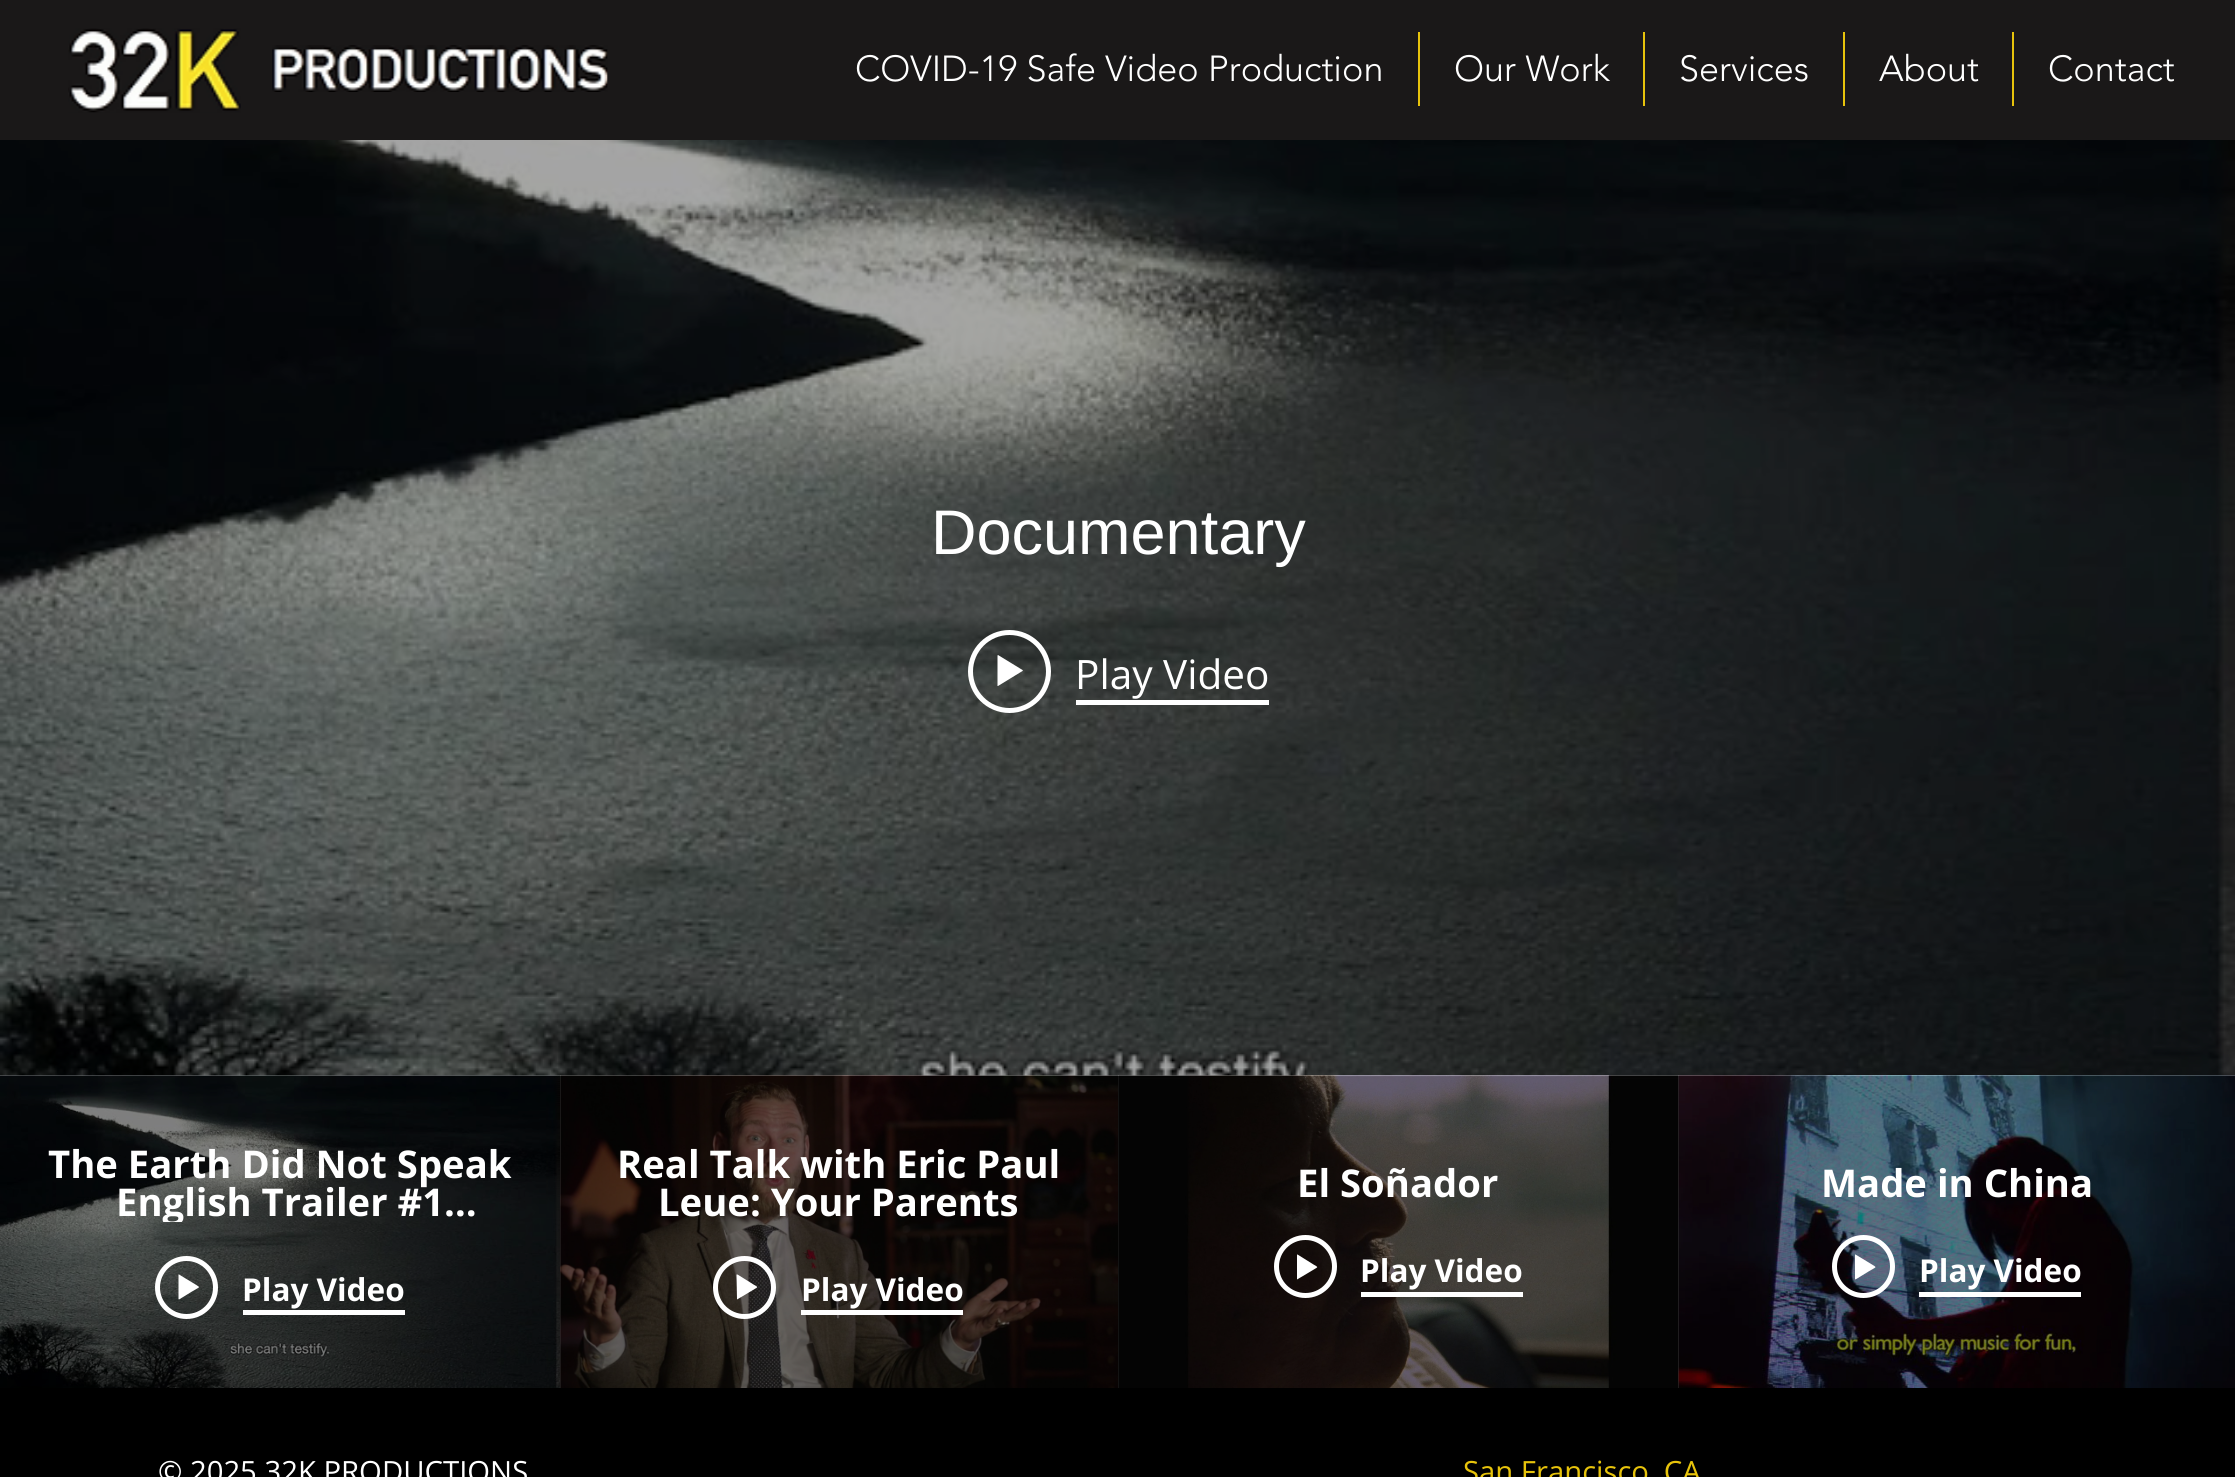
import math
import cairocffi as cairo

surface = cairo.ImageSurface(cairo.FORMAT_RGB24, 2235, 1477)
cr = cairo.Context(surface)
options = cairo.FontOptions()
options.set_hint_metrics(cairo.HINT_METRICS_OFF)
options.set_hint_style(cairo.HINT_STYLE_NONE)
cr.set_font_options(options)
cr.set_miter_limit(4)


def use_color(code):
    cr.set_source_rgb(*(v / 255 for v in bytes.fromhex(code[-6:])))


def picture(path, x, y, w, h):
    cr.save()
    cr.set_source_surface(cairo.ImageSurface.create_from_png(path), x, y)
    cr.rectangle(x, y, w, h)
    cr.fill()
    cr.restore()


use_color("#ffffff")
cr.paint()
use_color("#1a1818")
cr.rectangle(0, 0, 2235, 140)
cr.fill()
picture("img1.png", 68, 28, 173, 85)
picture("img2.png", 272, 45, 336, 47)
cr.select_font_face("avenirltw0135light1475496 Light")
cr.set_font_size(36)
use_color("#ffffff")
cr.move_to(855, 81)
cr.show_text("COVID-19 Safe Video Production")
use_color("#e7c30b")
cr.rectangle(1418, 32, 2, 74)
cr.fill()
use_color("#ffffff")
cr.move_to(1454, 81)
cr.show_text("Our Work")
use_color("#e7c30b")
cr.rectangle(1643, 32, 2, 74)
cr.fill()
use_color("#ffffff")
cr.move_to(1679, 81)
cr.show_text("Services")
use_color("#e7c30b")
cr.rectangle(1843, 32, 2, 74)
cr.fill()
use_color("#ffffff")
cr.move_to(1879, 81)
cr.show_text("About")
use_color("#e7c30b")
cr.rectangle(2012, 32, 2, 74)
cr.fill()
use_color("#ffffff")
cr.move_to(2048, 81)
cr.show_text("Contact")
picture("img3.png", 0, 1075, 2235, 1)
picture("img4.png", 0, 140, 2235, 936)
cr.select_font_face("Liberation Sans")
cr.set_font_size(63)
cr.move_to(931, 554)
cr.show_text("Documentary")
cr.new_path()
cr.arc(1009.5, 671.5, 39, 0, 2 * math.pi)
cr.set_line_width(5)
cr.stroke()
cr.new_path()
cr.move_to(998, 655)
cr.line_to(1022.5, 670)
cr.curve_to(1023, 670.5, 1023, 671, 1022.5, 671)
cr.line_to(998, 686)
cr.line_to(997.5, 686)
cr.line_to(997.5, 655.5)
cr.close_path()
cr.fill()
cr.rectangle(1076, 700, 193, 5)
cr.fill()
cr.select_font_face("Open Sans")
cr.set_font_size(40.5)
cr.move_to(1075, 689)
cr.show_text("Play Video")
picture("img5.png", 0, 1075, 561, 313)
picture("img6.png", 0, 1075, 561, 313)
cr.select_font_face("Open Sans", cairo.FONT_SLANT_NORMAL, cairo.FONT_WEIGHT_BOLD)
cr.set_font_size(38.25)
cr.move_to(48, 1178)
cr.show_text("The Earth Did Not Speak")
cr.save()
cr.rectangle(36, 1145, 488, 77)
cr.clip()
cr.move_to(116, 1216)
cr.show_text("English Trailer #1…")
cr.restore()
cr.new_path()
cr.arc(186.5, 1287.5, 29, 0, 2 * math.pi)
cr.stroke()
cr.new_path()
cr.move_to(179, 1274.5)
cr.line_to(195.5, 1284.5)
cr.curve_to(201, 1288, 200, 1286.5, 192, 1291.5)
cr.line_to(179, 1299.5)
cr.line_to(178.5, 1299)
cr.line_to(178.5, 1274.5)
cr.close_path()
cr.fill()
cr.rectangle(243, 1310, 162, 5)
cr.fill()
cr.set_font_size(31.5)
cr.move_to(242, 1301)
cr.show_text("Play Video")
picture("img7.png", 560, 1075, 558, 313)
picture("img8.png", 560, 1075, 558, 313)
cr.set_source_rgba(0, 0, 0, 0.5)
cr.rectangle(560, 1076, 558, 312)
cr.fill()
cr.set_font_size(38.25)
use_color("#ffffff")
cr.move_to(617, 1178)
cr.show_text("Real Talk with Eric Paul")
cr.move_to(658, 1216)
cr.show_text("Leue: Your Parents")
cr.new_path()
cr.arc(744.5, 1287.5, 29, 0, 2 * math.pi)
cr.stroke()
cr.new_path()
cr.move_to(737.5, 1274.5)
cr.line_to(753.5, 1284.5)
cr.curve_to(759.5, 1288, 758, 1286.5, 750.5, 1291.5)
cr.line_to(737, 1299.5)
cr.line_to(737, 1299)
cr.line_to(736.5, 1274.5)
cr.close_path()
cr.fill()
cr.rectangle(801, 1310, 162, 5)
cr.fill()
cr.set_font_size(31.5)
cr.move_to(801, 1301)
cr.show_text("Play Video")
use_color("#a8a8a7")
cr.rectangle(1118, 1076, 561, 312)
cr.fill()
picture("img9.png", 1118, 1075, 561, 313)
picture("img10.png", 1118, 1075, 561, 313)
picture("img11.png", 1678, 1075, 557, 313)
picture("img12.png", 1678, 1075, 557, 313)
cr.set_source_rgba(0, 0, 0, 0.5)
cr.rectangle(1118, 1076, 561, 312)
cr.fill()
cr.set_font_size(38.25)
use_color("#ffffff")
cr.move_to(1297, 1197)
cr.show_text("El Soñador")
cr.new_path()
cr.arc(1305.5, 1266.5, 29, 0, 2 * math.pi)
cr.stroke()
cr.new_path()
cr.move_to(1297.5, 1254.5)
cr.line_to(1313.5, 1264.5)
cr.curve_to(1319.5, 1268, 1318, 1266.5, 1310.5, 1271.5)
cr.line_to(1297, 1279.5)
cr.line_to(1297, 1279)
cr.line_to(1297, 1254.5)
cr.close_path()
cr.fill()
cr.rectangle(1361, 1292, 162, 5)
cr.fill()
cr.set_font_size(31.5)
cr.move_to(1360, 1282)
cr.show_text("Play Video")
cr.set_font_size(38.25)
cr.move_to(1821, 1197)
cr.show_text("Made in China")
cr.new_path()
cr.arc(1863.5, 1266.5, 29, 0, 2 * math.pi)
cr.stroke()
cr.new_path()
cr.move_to(1855.5, 1254.5)
cr.line_to(1872, 1264.5)
cr.curve_to(1877.5, 1268, 1876.5, 1266.5, 1868.5, 1271.5)
cr.line_to(1855.5, 1279.5)
cr.line_to(1855, 1279)
cr.line_to(1855, 1254.5)
cr.close_path()
cr.fill()
cr.rectangle(1919, 1292, 162, 5)
cr.fill()
cr.set_font_size(31.5)
cr.move_to(1919, 1282)
cr.show_text("Play Video")
use_color("#000000")
cr.rectangle(0, 1388, 2235, 89)
cr.fill()
cr.select_font_face("Open Sans")
cr.set_font_size(29.25)
use_color("#ffffff")
cr.move_to(158, 1482)
cr.show_text("© 2025 32K PRODUCTIONS")
use_color("#e7c30b")
cr.move_to(1463, 1482)
cr.show_text("San Francisco, CA")
surface.write_to_png("result.png")
